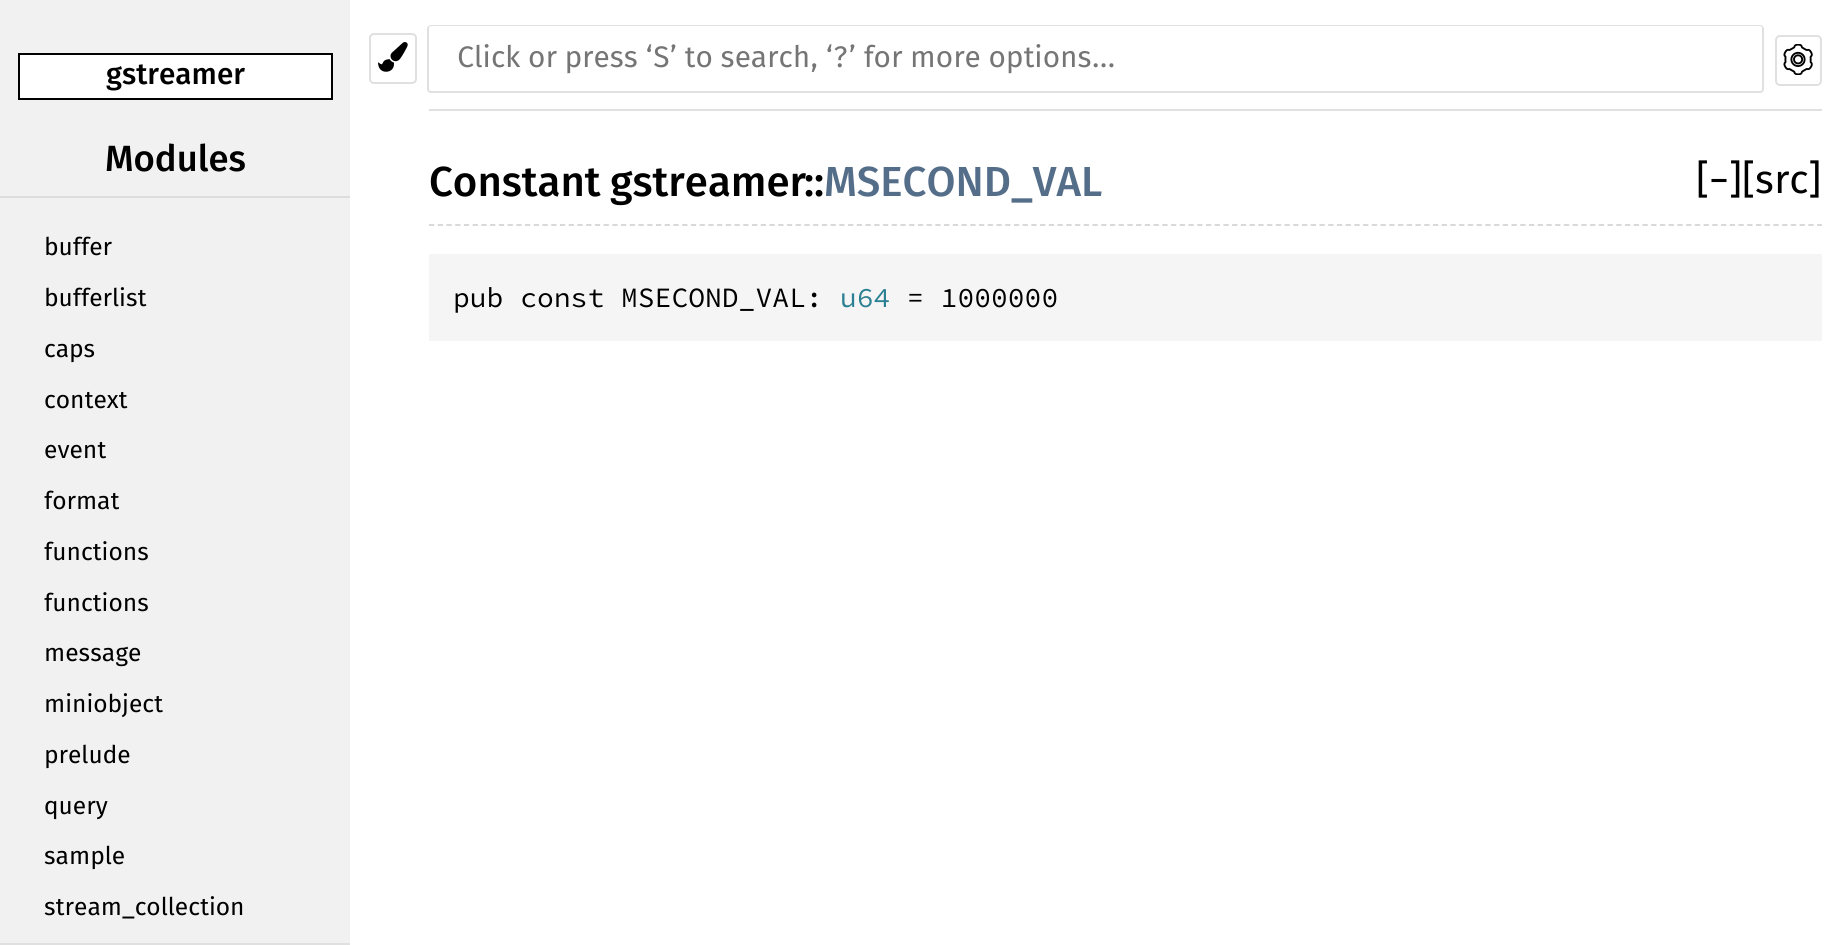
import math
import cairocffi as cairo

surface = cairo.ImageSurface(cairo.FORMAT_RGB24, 1847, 945)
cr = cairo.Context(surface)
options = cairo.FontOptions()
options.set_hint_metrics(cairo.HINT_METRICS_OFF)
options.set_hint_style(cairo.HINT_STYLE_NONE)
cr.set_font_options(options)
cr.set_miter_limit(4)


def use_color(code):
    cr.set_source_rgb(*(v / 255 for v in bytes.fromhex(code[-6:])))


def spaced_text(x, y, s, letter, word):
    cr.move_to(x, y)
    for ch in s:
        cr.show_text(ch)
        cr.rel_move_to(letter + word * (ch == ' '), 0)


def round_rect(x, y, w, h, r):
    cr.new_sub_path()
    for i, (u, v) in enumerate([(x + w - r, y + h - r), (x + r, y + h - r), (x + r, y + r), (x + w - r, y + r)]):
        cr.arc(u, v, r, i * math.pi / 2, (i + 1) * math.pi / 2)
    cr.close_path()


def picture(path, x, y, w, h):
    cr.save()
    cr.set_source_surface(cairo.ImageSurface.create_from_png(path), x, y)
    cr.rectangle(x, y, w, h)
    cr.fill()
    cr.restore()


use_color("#ffffff")
cr.paint()
round_rect(370, 34, 46, 49, 4)
use_color("#e0e0e0")
cr.stroke()
picture("img1.png", 378, 42, 30, 30)
cr.rectangle(429, 109, 1393, 2)
cr.fill()
round_rect(428, 26, 1335, 66, 3)
cr.stroke()
use_color("#ffffff")
round_rect(429, 26, 1333, 65, 2)
cr.fill()
cr.select_font_face("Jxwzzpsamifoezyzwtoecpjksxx")
cr.set_font_size(29.75)
use_color("#757575")
spaced_text(457, 67, "Click or press ‘S’ to search, ‘?’ for more options…", 0, -0.25)
round_rect(1776, 36, 45, 49, 4)
use_color("#e0e0e0")
cr.stroke()
picture("img2.png", 1783, 44, 30, 31)
use_color("#f1f1f1")
cr.rectangle(0, 0, 350, 943)
cr.fill()
use_color("#e0e0e0")
cr.rectangle(0, 943, 350, 2)
cr.fill()
use_color("#ffffff")
cr.rectangle(19, 54, 313, 45)
cr.fill_preserve()
use_color("#000000")
cr.stroke()
cr.select_font_face("Fira Sans Medium")
cr.move_to(106, 84)
cr.show_text("gstreamer")
use_color("#dddddd")
cr.rectangle(0, 196, 350, 2)
cr.fill()
cr.set_font_size(36.5)
use_color("#000000")
cr.move_to(105, 171)
cr.show_text("Modules")
cr.select_font_face("Jxwzzpsamifoezyzwtoecpjksxx")
cr.set_font_size(24.5)
cr.move_to(44, 255)
cr.show_text("buffer")
cr.move_to(44, 306)
cr.show_text("bufferlist")
cr.move_to(44, 357)
cr.show_text("caps")
cr.move_to(44, 408)
cr.show_text("context")
cr.move_to(44, 458)
cr.show_text("event")
cr.move_to(44, 509)
cr.show_text("format")
cr.move_to(44, 560)
cr.show_text("functions")
cr.move_to(44, 611)
cr.show_text("functions")
cr.move_to(44, 661)
cr.show_text("message")
cr.move_to(44, 712)
cr.show_text("miniobject")
cr.move_to(44, 763)
cr.show_text("prelude")
cr.move_to(44, 814)
cr.show_text("query")
cr.move_to(44, 864)
cr.show_text("sample")
cr.move_to(44, 915)
cr.show_text("stream_collection")
cr.new_path()
cr.move_to(429, 225)
cr.line_to(1822, 225)
use_color("#d5d5d5")
cr.set_line_width(1.8)
cr.set_dash([5.25, 3.48])
cr.stroke()
cr.select_font_face("Fira Sans Medium")
cr.set_font_size(42)
use_color("#000000")
cr.move_to(429, 196)
cr.show_text("Constant")
cr.move_to(610, 196)
cr.show_text("gstreamer")
cr.move_to(804, 196)
cr.show_text("::")
use_color("#546e8a")
cr.move_to(824, 196)
cr.show_text("MSECOND_VAL")
cr.select_font_face("Jxwzzpsamifoezyzwtoecpjksxx")
cr.set_font_size(40)
use_color("#000000")
cr.move_to(1696, 193)
cr.show_text("[−][src]")
use_color("#f5f5f5")
cr.rectangle(429, 254, 1393, 87)
cr.fill()
cr.select_font_face("Source Code Pro")
cr.set_font_size(28)
use_color("#000000")
cr.move_to(453, 307)
cr.show_text("pub const MSECOND_VAL:")
use_color("#2c8093")
cr.move_to(840, 307)
cr.show_text("u64")
use_color("#000000")
cr.move_to(907, 307)
cr.show_text("= 1000000")
surface.write_to_png("result.png")
